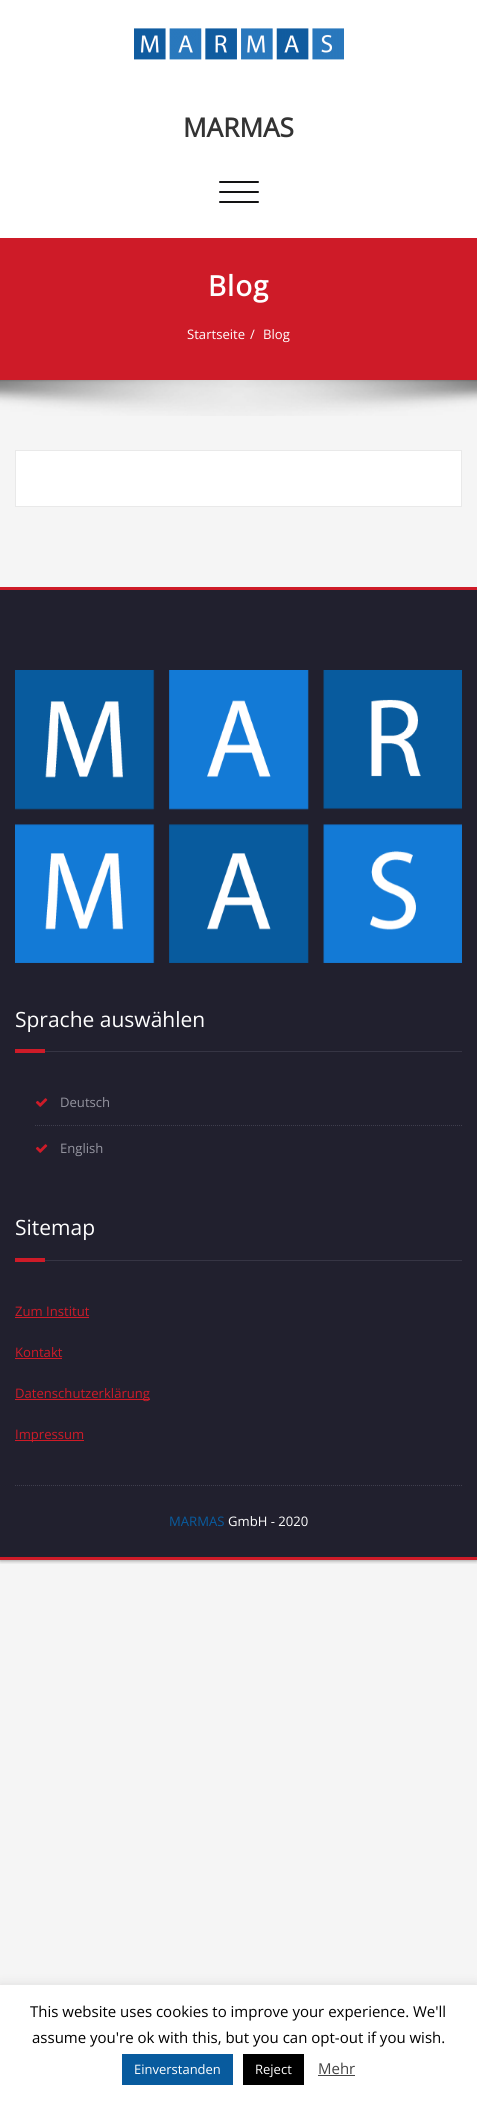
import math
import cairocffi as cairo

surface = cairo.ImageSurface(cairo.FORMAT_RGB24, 477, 2102)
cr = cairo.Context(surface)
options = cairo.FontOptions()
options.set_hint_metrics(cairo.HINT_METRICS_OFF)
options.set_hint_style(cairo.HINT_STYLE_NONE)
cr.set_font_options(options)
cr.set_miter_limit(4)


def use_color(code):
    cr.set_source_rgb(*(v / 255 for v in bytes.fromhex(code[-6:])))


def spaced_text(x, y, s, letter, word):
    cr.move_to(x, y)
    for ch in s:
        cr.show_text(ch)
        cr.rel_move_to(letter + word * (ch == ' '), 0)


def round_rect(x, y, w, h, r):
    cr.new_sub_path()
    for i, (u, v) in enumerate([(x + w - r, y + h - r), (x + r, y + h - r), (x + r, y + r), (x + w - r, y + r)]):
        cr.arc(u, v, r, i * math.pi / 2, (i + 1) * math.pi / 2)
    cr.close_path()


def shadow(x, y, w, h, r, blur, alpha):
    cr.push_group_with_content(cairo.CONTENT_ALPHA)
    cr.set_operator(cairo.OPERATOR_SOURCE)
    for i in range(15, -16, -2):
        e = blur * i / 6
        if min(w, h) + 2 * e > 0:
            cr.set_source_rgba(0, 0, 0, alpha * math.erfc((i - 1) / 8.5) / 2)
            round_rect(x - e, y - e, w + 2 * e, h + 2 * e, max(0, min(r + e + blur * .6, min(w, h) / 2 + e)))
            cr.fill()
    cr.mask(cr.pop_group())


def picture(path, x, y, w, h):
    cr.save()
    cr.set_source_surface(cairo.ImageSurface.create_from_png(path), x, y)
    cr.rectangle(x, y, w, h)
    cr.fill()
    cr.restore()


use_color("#f5f5f5")
cr.paint()
cr.save()
cr.rectangle(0, 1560, 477, 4)
cr.clip()
use_color("#000000")
shadow(0, 0, 477, 1560, 0, 2.5, 0.5)
cr.restore()
use_color("#ffffff")
cr.rectangle(0, 0, 477, 238)
cr.fill()
picture("img1.png", 134, 28, 210, 32)
cr.select_font_face("Open Sans", cairo.FONT_SLANT_NORMAL, cairo.FONT_WEIGHT_BOLD)
cr.set_font_size(26.25)
use_color("#333333")
cr.move_to(183, 137)
cr.show_text("MARMAS")
use_color("#121213")
round_rect(219, 181, 40, 2, 1)
cr.fill()
round_rect(219, 191, 40, 2, 1)
cr.fill()
round_rect(219, 201, 40, 2, 1)
cr.fill()
use_color("#ce1b28")
cr.rectangle(0, 238, 477, 142)
cr.fill()
cr.set_font_size(28)
use_color("#ffffff")
spaced_text(208, 296, "Blog", 1, 0)
cr.select_font_face("Open Sans")
cr.set_font_size(13.1)
cr.move_to(187, 339)
cr.show_text("Startseite")
cr.move_to(250, 339)
cr.show_text("/")
cr.move_to(263, 339)
cr.show_text("Blog")
picture("img2.png", 0, 380, 477, 36)
cr.rectangle(15.5, 450.5, 446, 56)
cr.fill_preserve()
use_color("#e9e9e9")
cr.set_line_width(1)
cr.stroke()
use_color("#21202e")
cr.rectangle(0, 590, 477, 967)
cr.fill()
use_color("#ce1b28")
cr.rectangle(0, 587, 477, 3)
cr.fill()
cr.rectangle(0, 1557, 477, 3)
cr.fill()
picture("img3.png", 15, 670, 447, 293)
use_color("#363544")
cr.rectangle(45, 1051, 417, 1)
cr.fill()
cr.set_font_size(21)
use_color("#ffffff")
cr.move_to(15, 1027)
cr.show_text("Sprache auswählen")
use_color("#ce1b28")
cr.rectangle(15, 1049, 30, 4)
cr.fill()
cr.new_path()
cr.move_to(35, 1125.5)
cr.line_to(462, 1125.5)
use_color("#403f4e")
cr.set_dash([1, 1])
cr.stroke()
picture("img4.png", 35, 1098, 13, 9)
cr.set_font_size(13.1)
use_color("#9595a0")
cr.move_to(60, 1107)
cr.show_text("Deutsch")
picture("img4.png", 35, 1144, 13, 9)
cr.move_to(60, 1153)
cr.show_text("English")
use_color("#363544")
cr.rectangle(45, 1260, 417, 1)
cr.fill()
cr.set_font_size(21)
use_color("#ffffff")
cr.move_to(15, 1235)
cr.show_text("Sitemap")
use_color("#ce1b28")
cr.rectangle(15, 1258, 30, 4)
cr.fill()
cr.set_font_size(13.1)
cr.move_to(15, 1316)
cr.show_text("Zum Institut")
cr.rectangle(15, 1317, 74, 1)
cr.fill()
cr.move_to(15, 1357)
cr.show_text("Kontakt")
cr.rectangle(15, 1358, 47, 1)
cr.fill()
cr.rectangle(15, 1399, 135, 1)
cr.fill()
cr.move_to(15, 1398)
cr.show_text("Datenschutzerklärung")
cr.rectangle(15, 1440, 69, 1)
cr.fill()
cr.move_to(15, 1439)
cr.show_text("Impressum")
cr.new_path()
cr.move_to(15, 1485.5)
cr.line_to(462, 1485.5)
use_color("#403f4e")
cr.stroke()
use_color("#085b9e")
cr.move_to(169, 1526)
cr.show_text("MARMAS")
use_color("#ffffff")
cr.move_to(228, 1526)
cr.show_text("GmbH - 2020")
use_color("#acabab")
shadow(0, 1984, 477, 117, 0, 5, 0.3)
use_color("#ffffff")
cr.rectangle(0, 1985, 477, 117)
cr.fill()
cr.set_font_size(15)
use_color("#000000")
cr.move_to(30, 2017)
cr.show_text("This website uses cookies to improve your experience. We'll")
cr.move_to(32, 2043)
cr.show_text("assume you're ok with this, but you can opt-out if you wish.")
use_color("#085b9e")
cr.rectangle(122, 2054, 111, 31)
cr.fill()
cr.set_font_size(13)
use_color("#ffffff")
cr.move_to(134, 2074)
cr.show_text("Einverstanden")
use_color("#000000")
cr.rectangle(243, 2054, 61, 31)
cr.fill()
use_color("#ffffff")
cr.move_to(255, 2074)
cr.show_text("Reject")
cr.set_font_size(15)
use_color("#444444")
cr.move_to(318, 2074)
cr.show_text("Mehr")
cr.rectangle(318, 2075, 37, 1)
cr.fill()
surface.write_to_png("result.png")
